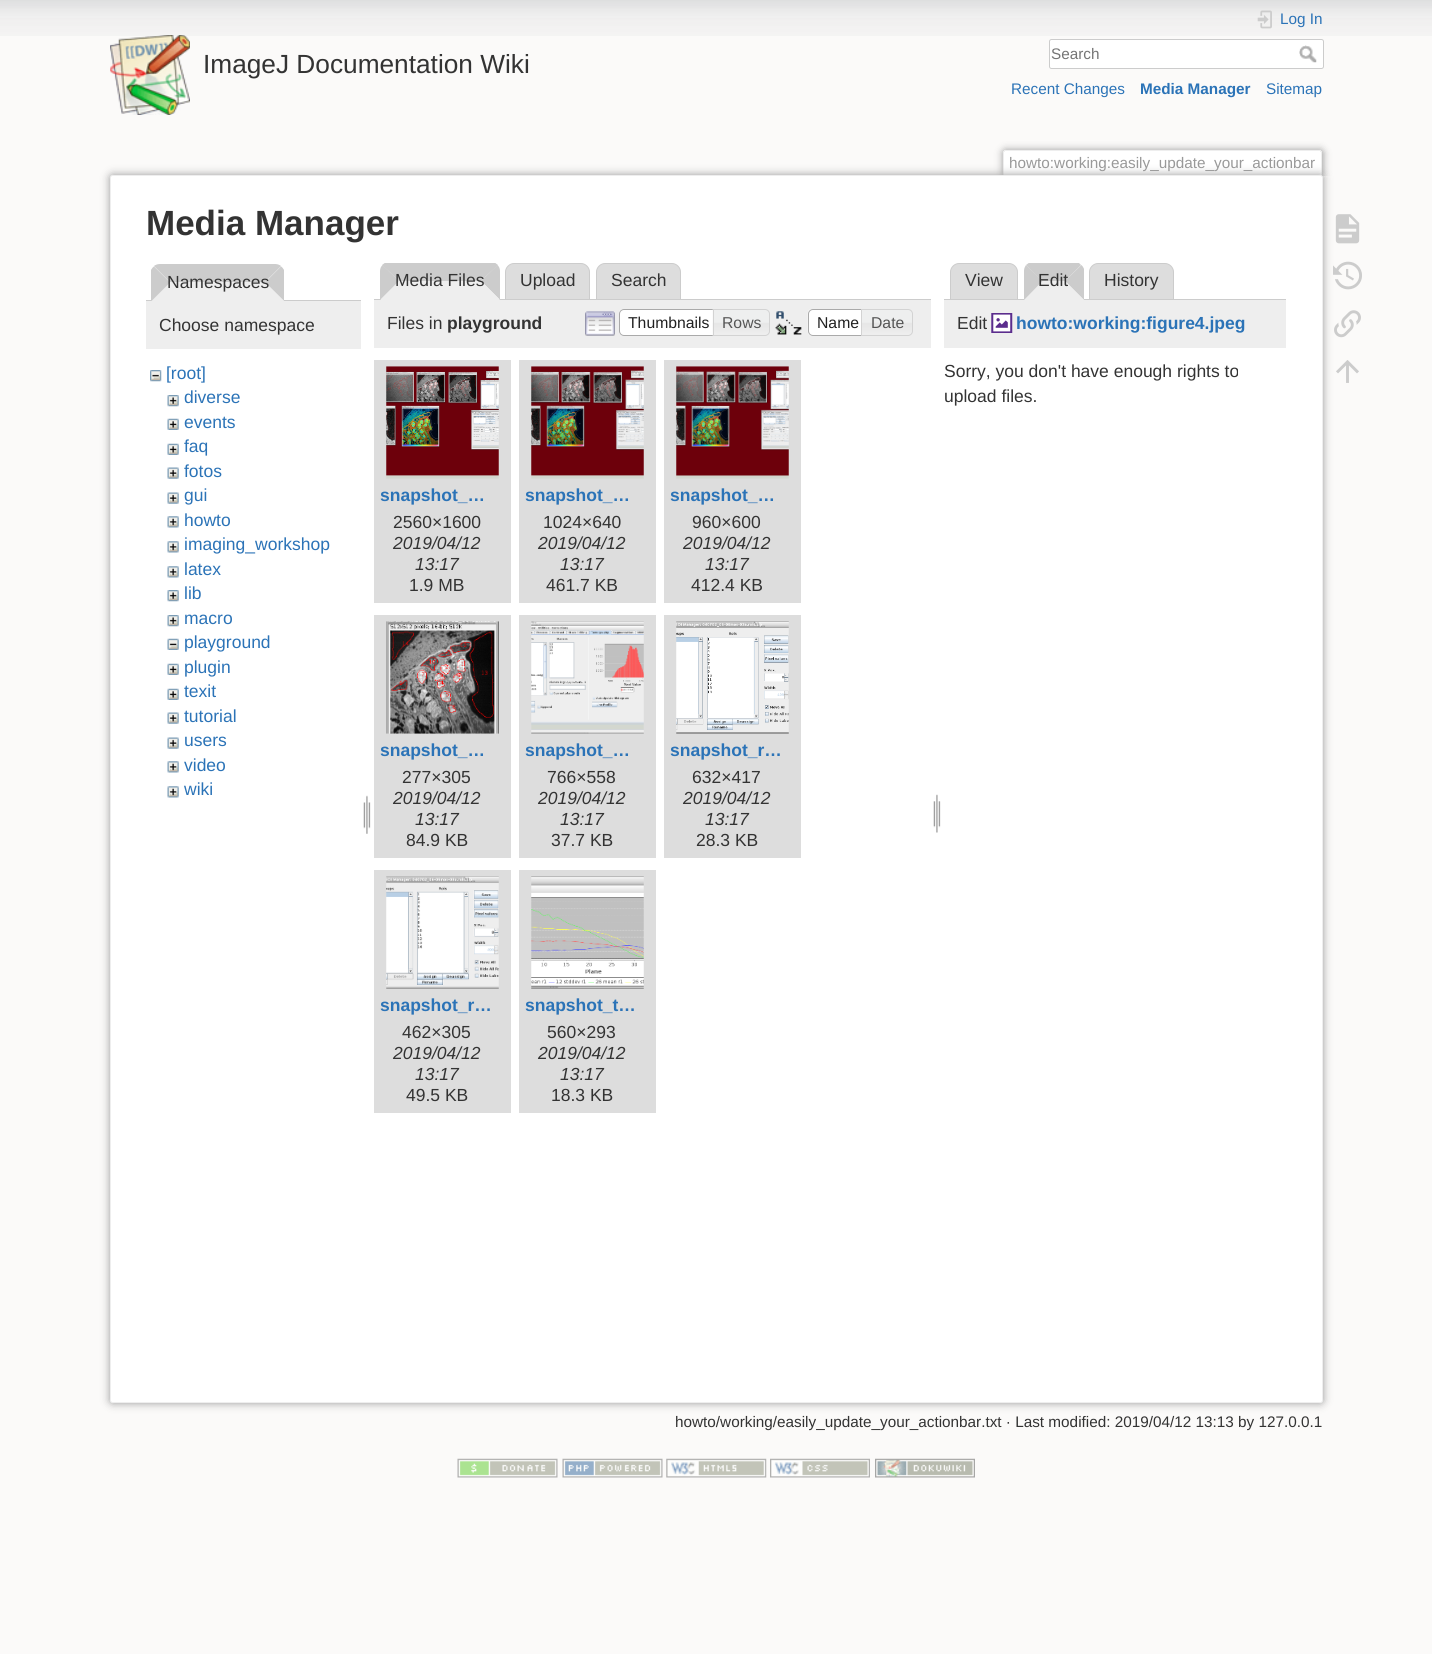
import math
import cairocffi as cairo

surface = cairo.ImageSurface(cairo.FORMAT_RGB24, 1432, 1654)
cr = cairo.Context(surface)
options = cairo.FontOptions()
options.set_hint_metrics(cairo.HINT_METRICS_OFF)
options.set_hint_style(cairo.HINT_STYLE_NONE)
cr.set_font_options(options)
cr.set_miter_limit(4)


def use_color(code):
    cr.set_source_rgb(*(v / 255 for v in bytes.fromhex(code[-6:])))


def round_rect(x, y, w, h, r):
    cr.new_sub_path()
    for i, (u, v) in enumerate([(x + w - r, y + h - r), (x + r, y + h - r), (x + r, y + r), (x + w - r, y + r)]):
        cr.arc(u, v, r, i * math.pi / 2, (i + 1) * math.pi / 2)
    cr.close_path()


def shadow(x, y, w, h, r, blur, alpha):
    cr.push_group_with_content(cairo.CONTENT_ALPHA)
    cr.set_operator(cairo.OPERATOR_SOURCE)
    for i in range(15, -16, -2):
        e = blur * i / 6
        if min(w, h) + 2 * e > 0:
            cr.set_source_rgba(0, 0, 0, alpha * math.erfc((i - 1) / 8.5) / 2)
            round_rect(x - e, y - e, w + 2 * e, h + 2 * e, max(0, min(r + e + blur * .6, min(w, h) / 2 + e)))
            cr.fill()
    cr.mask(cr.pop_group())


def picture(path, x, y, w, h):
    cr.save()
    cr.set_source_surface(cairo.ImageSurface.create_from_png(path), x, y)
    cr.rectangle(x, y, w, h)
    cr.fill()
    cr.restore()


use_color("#fbfaf9")
cr.paint()
picture("img1.png", 0, 0, 1432, 36)
picture("img2.png", 110, 35, 80, 80)
cr.select_font_face("Liberation Sans")
cr.set_font_size(26.25)
use_color("#333333")
cr.move_to(203, 73)
cr.show_text("ImageJ Documentation Wiki")
picture("img3.png", 1257, 10, 15, 19)
cr.set_font_size(15.3)
use_color("#2b73b7")
cr.move_to(1280, 24)
cr.show_text("Log In")
use_color("#ffffff")
round_rect(1049.5, 39.5, 274, 29, 2)
cr.fill_preserve()
use_color("#cccccc")
cr.set_line_width(1)
cr.stroke()
use_color("#757575")
cr.move_to(1051, 59)
cr.show_text("Search")
picture("img4.png", 1299, 45, 18, 18)
use_color("#2b73b7")
cr.move_to(1011, 94)
cr.show_text("Recent Changes")
cr.select_font_face("Liberation Sans", cairo.FONT_SLANT_NORMAL, cairo.FONT_WEIGHT_BOLD)
cr.move_to(1140, 94)
cr.show_text("Media Manager")
cr.select_font_face("Liberation Sans")
cr.move_to(1266, 94)
cr.show_text("Sitemap")
cr.save()
cr.rectangle(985, 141, 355, 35)
cr.clip()
use_color("#999999")
shadow(1003, 150, 320, 26, 2.5, 4, 1)
cr.restore()
use_color("#ffffff")
cr.new_path()
cr.move_to(1005, 151)
cr.line_to(1320, 151)
cr.curve_to(1320.5, 151, 1321, 151.5, 1321, 152)
cr.line_to(1321, 176)
cr.line_to(1004, 176)
cr.line_to(1004, 152)
cr.curve_to(1004, 151.5, 1004.5, 151, 1005, 151)
cr.close_path()
cr.fill()
use_color("#eeeeee")
cr.rectangle(1004, 150, 317, 1)
cr.fill()
cr.rectangle(1321, 151, 1, 25)
cr.fill()
cr.rectangle(1003, 151, 1, 25)
cr.fill()
use_color("#999999")
cr.move_to(1009, 168)
cr.show_text("howto:working:easily_update_your_actionbar")
use_color("#999999")
shadow(110, 175, 1213, 1228, 2.5, 4.5, 1)
use_color("#ffffff")
round_rect(110.5, 175.5, 1212, 1227, 2)
cr.fill_preserve()
use_color("#eeeeee")
cr.stroke()
cr.select_font_face("Liberation Sans", cairo.FONT_SLANT_NORMAL, cairo.FONT_WEIGHT_BOLD)
cr.set_font_size(35)
use_color("#333333")
cr.move_to(146, 235)
cr.show_text("Media Manager")
use_color("#cccccc")
cr.rectangle(146, 300, 215, 1)
cr.fill()
use_color("#eeeeee")
cr.new_path()
cr.move_to(160, 264)
cr.line_to(275, 264)
cr.curve_to(280, 264, 284, 268, 284, 273)
cr.line_to(284, 301)
cr.line_to(151, 301)
cr.line_to(151, 273)
cr.curve_to(151, 268, 155, 264, 160, 264)
cr.close_path()
cr.fill()
use_color("#cccccc")
cr.new_path()
cr.move_to(160, 264)
cr.curve_to(158, 264, 155, 265, 154, 266)
cr.line_to(170, 282)
cr.line_to(265, 282)
cr.line_to(281, 266)
cr.curve_to(280, 265, 277, 264, 275, 264)
cr.close_path()
cr.fill()
cr.new_path()
cr.move_to(284, 301)
cr.line_to(265, 282.5)
cr.line_to(281, 266.5)
cr.curve_to(282.5, 267.5, 283.5, 269, 284, 270)
cr.close_path()
cr.fill()
use_color("#eeeeee")
cr.new_path()
cr.move_to(284, 301)
cr.line_to(265, 282)
cr.line_to(170, 282)
cr.line_to(152, 301)
cr.close_path()
cr.fill()
use_color("#cccccc")
cr.new_path()
cr.move_to(151, 270)
cr.curve_to(151.5, 269, 152.5, 267.5, 154, 266.5)
cr.line_to(170, 282.5)
cr.line_to(151.5, 301)
cr.line_to(151, 301)
cr.close_path()
cr.fill()
cr.select_font_face("Liberation Sans")
cr.set_font_size(17.5)
use_color("#333333")
cr.move_to(167, 288)
cr.show_text("Namespaces")
use_color("#eeeeee")
cr.rectangle(146, 301, 215, 48)
cr.fill()
use_color("#333333")
cr.move_to(159, 331)
cr.show_text("Choose namespace")
picture("img5.png", 150, 370, 12, 12)
use_color("#2b73b7")
cr.move_to(166, 379)
cr.show_text("[root]")
picture("img6.png", 167, 395, 12, 12)
cr.move_to(184, 403)
cr.show_text("diverse")
picture("img7.png", 167, 418, 12, 12)
cr.move_to(184, 428)
cr.show_text("events")
picture("img7.png", 167, 443, 12, 12)
cr.move_to(184, 452)
cr.show_text("faq")
picture("img8.png", 167, 467, 12, 12)
cr.move_to(184, 477)
cr.show_text("fotos")
picture("img8.png", 167, 492, 12, 12)
cr.move_to(184, 501)
cr.show_text("gui")
picture("img9.png", 167, 516, 12, 12)
cr.move_to(184, 526)
cr.show_text("howto")
picture("img9.png", 167, 541, 12, 12)
cr.move_to(184, 550)
cr.show_text("imaging_workshop")
picture("img9.png", 167, 566, 12, 12)
cr.move_to(184, 575)
cr.show_text("latex")
picture("img6.png", 167, 590, 12, 12)
cr.move_to(184, 599)
cr.show_text("lib")
picture("img6.png", 167, 615, 12, 12)
cr.move_to(184, 624)
cr.show_text("macro")
picture("img10.png", 167, 638, 12, 12)
cr.move_to(184, 648)
cr.show_text("playground")
picture("img7.png", 167, 663, 12, 12)
cr.move_to(184, 673)
cr.show_text("plugin")
picture("img7.png", 167, 688, 12, 12)
cr.move_to(184, 697)
cr.show_text("texit")
picture("img8.png", 167, 712, 12, 12)
cr.move_to(184, 722)
cr.show_text("tutorial")
picture("img8.png", 167, 737, 12, 12)
cr.move_to(184, 746)
cr.show_text("users")
picture("img9.png", 167, 761, 12, 12)
cr.move_to(184, 771)
cr.show_text("video")
picture("img9.png", 167, 786, 12, 12)
cr.move_to(184, 795)
cr.show_text("wiki")
picture("img11.png", 363, 795, 8, 39)
cr.save()
cr.rectangle(374, 263, 557, 37)
cr.clip()
use_color("#cccccc")
cr.new_path()
cr.move_to(494, 262)
cr.line_to(386, 262)
cr.line_to(382, 265)
cr.line_to(399, 281)
cr.line_to(481, 281)
cr.line_to(498, 265)
cr.close_path()
cr.fill()
cr.restore()
use_color("#dddddd")
cr.new_path()
cr.move_to(514, 263.5)
cr.line_to(581, 263.5)
cr.curve_to(585.5, 263.5, 589.5, 267.5, 589.5, 272)
cr.line_to(589.5, 299.5)
cr.line_to(505.5, 299.5)
cr.line_to(505.5, 272)
cr.curve_to(505.5, 267.5, 509.5, 263.5, 514, 263.5)
cr.close_path()
cr.fill_preserve()
use_color("#cccccc")
cr.stroke()
use_color("#dddddd")
cr.new_path()
cr.move_to(605, 263.5)
cr.line_to(672, 263.5)
cr.curve_to(676.5, 263.5, 680.5, 267.5, 680.5, 272)
cr.line_to(680.5, 299.5)
cr.line_to(596.5, 299.5)
cr.line_to(596.5, 272)
cr.curve_to(596.5, 267.5, 600.5, 263.5, 605, 263.5)
cr.close_path()
cr.fill_preserve()
use_color("#cccccc")
cr.stroke()
cr.rectangle(374, 299, 557, 1)
cr.fill()
cr.new_path()
cr.move_to(497.5, 265)
cr.line_to(481, 281)
cr.line_to(500, 300)
cr.line_to(500, 271)
cr.curve_to(500, 268.5, 499, 266.5, 497.5, 265)
cr.close_path()
cr.fill()
use_color("#eeeeee")
cr.new_path()
cr.move_to(500, 300)
cr.line_to(481, 281)
cr.line_to(399, 281)
cr.line_to(380, 300)
cr.close_path()
cr.fill()
use_color("#cccccc")
cr.new_path()
cr.move_to(380, 300)
cr.line_to(380, 271)
cr.curve_to(380, 268.5, 381, 266.5, 382.5, 265)
cr.line_to(399, 281)
cr.close_path()
cr.fill()
use_color("#333333")
cr.move_to(395, 286)
cr.show_text("Media Files")
cr.move_to(520, 286)
cr.show_text("Upload")
cr.move_to(611, 286)
cr.show_text("Search")
use_color("#eeeeee")
cr.rectangle(374, 300, 557, 48)
cr.fill()
use_color("#333333")
cr.move_to(387, 329)
cr.show_text("Files in")
cr.select_font_face("Liberation Sans", cairo.FONT_SLANT_NORMAL, cairo.FONT_WEIGHT_BOLD)
cr.move_to(447, 329)
cr.show_text("playground")
picture("img12.png", 585, 311, 30, 25)
use_color("#ffffff")
cr.new_path()
cr.move_to(624, 309)
cr.line_to(719, 309)
cr.line_to(719, 336)
cr.line_to(624, 336)
cr.curve_to(621, 336, 619, 334, 619, 331)
cr.line_to(619, 314)
cr.curve_to(619, 311, 621, 309, 624, 309)
cr.close_path()
cr.fill()
picture("img13.png", 619, 309, 4, 27)
cr.new_path()
cr.move_to(624, 309.5)
cr.line_to(718.5, 309.5)
cr.line_to(718.5, 335.5)
cr.line_to(624, 335.5)
cr.curve_to(621.5, 335.5, 619.5, 333.5, 619.5, 331)
cr.line_to(619.5, 314)
cr.curve_to(619.5, 311.5, 621.5, 309.5, 624, 309.5)
cr.close_path()
use_color("#aaaaaa")
cr.stroke()
cr.select_font_face("Liberation Sans")
cr.set_font_size(15.75)
use_color("#212121")
cr.move_to(628, 328)
cr.show_text("Thumbnails")
picture("img14.png", 712, 309, 58, 27)
cr.new_path()
cr.move_to(713.5, 309.5)
cr.line_to(765, 309.5)
cr.curve_to(767.5, 309.5, 769.5, 311.5, 769.5, 314)
cr.line_to(769.5, 331)
cr.curve_to(769.5, 333.5, 767.5, 335.5, 765, 335.5)
cr.line_to(713.5, 335.5)
cr.close_path()
use_color("#d3d3d3")
cr.stroke()
use_color("#555555")
cr.move_to(722, 328)
cr.show_text("Rows")
picture("img15.png", 775, 311, 27, 24)
use_color("#ffffff")
cr.new_path()
cr.move_to(813, 309)
cr.line_to(868, 309)
cr.line_to(868, 336)
cr.line_to(813, 336)
cr.curve_to(810, 336, 808, 334, 808, 331)
cr.line_to(808, 314)
cr.curve_to(808, 311, 810, 309, 813, 309)
cr.close_path()
cr.fill()
picture("img16.png", 807, 309, 5, 27)
cr.new_path()
cr.move_to(813, 309.5)
cr.line_to(867.5, 309.5)
cr.line_to(867.5, 335.5)
cr.line_to(813, 335.5)
cr.curve_to(810.5, 335.5, 808.5, 333.5, 808.5, 331)
cr.line_to(808.5, 314)
cr.curve_to(808.5, 311.5, 810.5, 309.5, 813, 309.5)
cr.close_path()
use_color("#aaaaaa")
cr.stroke()
use_color("#212121")
cr.move_to(817, 328)
cr.show_text("Name")
picture("img17.png", 862, 309, 50, 27)
cr.new_path()
cr.move_to(861.5, 309.5)
cr.line_to(908, 309.5)
cr.curve_to(910.5, 309.5, 912.5, 311.5, 912.5, 314)
cr.line_to(912.5, 331)
cr.curve_to(912.5, 333.5, 910.5, 335.5, 908, 335.5)
cr.line_to(861.5, 335.5)
cr.close_path()
use_color("#d3d3d3")
cr.stroke()
use_color("#555555")
cr.move_to(871, 328)
cr.show_text("Date")
use_color("#dddddd")
cr.rectangle(374, 360, 137, 243)
cr.fill()
picture("img18.png", 386, 366, 113, 113)
cr.select_font_face("Liberation Sans", cairo.FONT_SLANT_NORMAL, cairo.FONT_WEIGHT_BOLD)
cr.set_font_size(17.5)
use_color("#2b73b7")
cr.move_to(380, 501)
cr.show_text("snapshot_…")
cr.select_font_face("Liberation Sans")
use_color("#333333")
cr.move_to(393, 528)
cr.show_text("2560×1600")
cr.select_font_face("Liberation Sans", cairo.FONT_SLANT_ITALIC)
cr.move_to(393, 549)
cr.show_text("2019/04/12")
cr.move_to(415, 570)
cr.show_text("13:17")
cr.select_font_face("Liberation Sans")
cr.move_to(409, 591)
cr.show_text("1.9 MB")
use_color("#dddddd")
cr.rectangle(519, 360, 137, 243)
cr.fill()
picture("img19.png", 531, 366, 113, 113)
cr.select_font_face("Liberation Sans", cairo.FONT_SLANT_NORMAL, cairo.FONT_WEIGHT_BOLD)
use_color("#2b73b7")
cr.move_to(525, 501)
cr.show_text("snapshot_…")
cr.select_font_face("Liberation Sans")
use_color("#333333")
cr.move_to(543, 528)
cr.show_text("1024×640")
cr.select_font_face("Liberation Sans", cairo.FONT_SLANT_ITALIC)
cr.move_to(538, 549)
cr.show_text("2019/04/12")
cr.move_to(560, 570)
cr.show_text("13:17")
cr.select_font_face("Liberation Sans")
cr.move_to(546, 591)
cr.show_text("461.7 KB")
use_color("#dddddd")
cr.rectangle(664, 360, 137, 243)
cr.fill()
picture("img20.png", 676, 366, 113, 113)
cr.select_font_face("Liberation Sans", cairo.FONT_SLANT_NORMAL, cairo.FONT_WEIGHT_BOLD)
use_color("#2b73b7")
cr.move_to(670, 501)
cr.show_text("snapshot_…")
cr.select_font_face("Liberation Sans")
use_color("#333333")
cr.move_to(692, 528)
cr.show_text("960×600")
cr.select_font_face("Liberation Sans", cairo.FONT_SLANT_ITALIC)
cr.move_to(683, 549)
cr.show_text("2019/04/12")
cr.move_to(705, 570)
cr.show_text("13:17")
cr.select_font_face("Liberation Sans")
cr.move_to(691, 591)
cr.show_text("412.4 KB")
use_color("#dddddd")
cr.rectangle(374, 615, 137, 243)
cr.fill()
picture("img21.png", 386, 621, 113, 113)
cr.select_font_face("Liberation Sans", cairo.FONT_SLANT_NORMAL, cairo.FONT_WEIGHT_BOLD)
use_color("#2b73b7")
cr.move_to(380, 756)
cr.show_text("snapshot_…")
cr.select_font_face("Liberation Sans")
use_color("#333333")
cr.move_to(402, 783)
cr.show_text("277×305")
cr.select_font_face("Liberation Sans", cairo.FONT_SLANT_ITALIC)
cr.move_to(393, 804)
cr.show_text("2019/04/12")
cr.move_to(415, 825)
cr.show_text("13:17")
cr.select_font_face("Liberation Sans")
cr.move_to(406, 846)
cr.show_text("84.9 KB")
use_color("#dddddd")
cr.rectangle(519, 615, 137, 243)
cr.fill()
picture("img22.png", 531, 621, 113, 113)
cr.select_font_face("Liberation Sans", cairo.FONT_SLANT_NORMAL, cairo.FONT_WEIGHT_BOLD)
use_color("#2b73b7")
cr.move_to(525, 756)
cr.show_text("snapshot_…")
cr.select_font_face("Liberation Sans")
use_color("#333333")
cr.move_to(547, 783)
cr.show_text("766×558")
cr.select_font_face("Liberation Sans", cairo.FONT_SLANT_ITALIC)
cr.move_to(538, 804)
cr.show_text("2019/04/12")
cr.move_to(560, 825)
cr.show_text("13:17")
cr.select_font_face("Liberation Sans")
cr.move_to(551, 846)
cr.show_text("37.7 KB")
use_color("#dddddd")
cr.rectangle(664, 615, 137, 243)
cr.fill()
picture("img23.png", 676, 621, 113, 113)
cr.select_font_face("Liberation Sans", cairo.FONT_SLANT_NORMAL, cairo.FONT_WEIGHT_BOLD)
use_color("#2b73b7")
cr.move_to(670, 756)
cr.show_text("snapshot_r…")
cr.select_font_face("Liberation Sans")
use_color("#333333")
cr.move_to(692, 783)
cr.show_text("632×417")
cr.select_font_face("Liberation Sans", cairo.FONT_SLANT_ITALIC)
cr.move_to(683, 804)
cr.show_text("2019/04/12")
cr.move_to(705, 825)
cr.show_text("13:17")
cr.select_font_face("Liberation Sans")
cr.move_to(696, 846)
cr.show_text("28.3 KB")
use_color("#dddddd")
cr.rectangle(374, 870, 137, 243)
cr.fill()
picture("img24.png", 386, 876, 113, 113)
cr.select_font_face("Liberation Sans", cairo.FONT_SLANT_NORMAL, cairo.FONT_WEIGHT_BOLD)
use_color("#2b73b7")
cr.move_to(380, 1011)
cr.show_text("snapshot_r…")
cr.select_font_face("Liberation Sans")
use_color("#333333")
cr.move_to(402, 1038)
cr.show_text("462×305")
cr.select_font_face("Liberation Sans", cairo.FONT_SLANT_ITALIC)
cr.move_to(393, 1059)
cr.show_text("2019/04/12")
cr.move_to(415, 1080)
cr.show_text("13:17")
cr.select_font_face("Liberation Sans")
cr.move_to(406, 1101)
cr.show_text("49.5 KB")
use_color("#dddddd")
cr.rectangle(519, 870, 137, 243)
cr.fill()
picture("img25.png", 531, 876, 113, 113)
cr.select_font_face("Liberation Sans", cairo.FONT_SLANT_NORMAL, cairo.FONT_WEIGHT_BOLD)
use_color("#2b73b7")
cr.move_to(525, 1011)
cr.show_text("snapshot_t…")
cr.select_font_face("Liberation Sans")
use_color("#333333")
cr.move_to(547, 1038)
cr.show_text("560×293")
cr.select_font_face("Liberation Sans", cairo.FONT_SLANT_ITALIC)
cr.move_to(538, 1059)
cr.show_text("2019/04/12")
cr.move_to(560, 1080)
cr.show_text("13:17")
cr.select_font_face("Liberation Sans")
cr.move_to(551, 1101)
cr.show_text("18.3 KB")
picture("img26.png", 933, 794, 8, 39)
use_color("#dddddd")
cr.new_path()
cr.move_to(959, 263.5)
cr.line_to(1009, 263.5)
cr.curve_to(1013.5, 263.5, 1017.5, 267.5, 1017.5, 272)
cr.line_to(1017.5, 299.5)
cr.line_to(950.5, 299.5)
cr.line_to(950.5, 272)
cr.curve_to(950.5, 267.5, 954.5, 263.5, 959, 263.5)
cr.close_path()
cr.fill_preserve()
use_color("#cccccc")
cr.stroke()
use_color("#333333")
cr.move_to(965, 286)
cr.show_text("View")
use_color("#dddddd")
cr.new_path()
cr.move_to(1098, 263.5)
cr.line_to(1165, 263.5)
cr.curve_to(1169.5, 263.5, 1173.5, 267.5, 1173.5, 272)
cr.line_to(1173.5, 299.5)
cr.line_to(1089.5, 299.5)
cr.line_to(1089.5, 272)
cr.curve_to(1089.5, 267.5, 1093.5, 263.5, 1098, 263.5)
cr.close_path()
cr.fill_preserve()
use_color("#cccccc")
cr.stroke()
cr.rectangle(944, 299, 342, 1)
cr.fill()
use_color("#eeeeee")
cr.new_path()
cr.move_to(1033, 263)
cr.line_to(1075, 263)
cr.curve_to(1080, 263, 1084, 267, 1084, 272)
cr.line_to(1084, 300)
cr.line_to(1024, 300)
cr.line_to(1024, 272)
cr.curve_to(1024, 267, 1028, 263, 1033, 263)
cr.close_path()
cr.fill()
cr.save()
cr.rectangle(944, 263, 342, 37)
cr.clip()
use_color("#cccccc")
cr.new_path()
cr.move_to(1078, 262)
cr.line_to(1030, 262)
cr.line_to(1026, 265)
cr.line_to(1042, 281)
cr.line_to(1065, 281)
cr.line_to(1081, 265)
cr.close_path()
cr.fill()
cr.restore()
use_color("#cccccc")
cr.new_path()
cr.move_to(1081.5, 265)
cr.line_to(1065, 281)
cr.line_to(1084, 300)
cr.line_to(1084, 269)
cr.curve_to(1083.5, 267.5, 1082.5, 266, 1081.5, 265)
cr.close_path()
cr.fill()
use_color("#eeeeee")
cr.new_path()
cr.move_to(1084, 300)
cr.line_to(1065, 281)
cr.line_to(1042, 281)
cr.line_to(1024, 300)
cr.close_path()
cr.fill()
use_color("#cccccc")
cr.new_path()
cr.move_to(1024, 300)
cr.line_to(1042.5, 281)
cr.line_to(1026, 265)
cr.curve_to(1025, 266.5, 1024, 268.5, 1024, 271)
cr.close_path()
cr.fill()
use_color("#333333")
cr.move_to(1038, 286)
cr.show_text("Edit")
cr.move_to(1104, 286)
cr.show_text("History")
use_color("#eeeeee")
cr.rectangle(944, 300, 342, 48)
cr.fill()
use_color("#333333")
cr.move_to(957, 329)
cr.show_text("Edit")
picture("img27.png", 991, 313, 22, 20)
cr.select_font_face("Liberation Sans", cairo.FONT_SLANT_NORMAL, cairo.FONT_WEIGHT_BOLD)
use_color("#2b73b7")
cr.move_to(1016, 329)
cr.show_text("howto:working:figure4.jpeg")
cr.select_font_face("Liberation Sans")
use_color("#333333")
cr.move_to(944, 377)
cr.show_text("Sorry, you don't have enough rights to")
cr.move_to(944, 402)
cr.show_text("upload files.")
cr.set_font_size(15.3)
cr.move_to(675, 1427)
cr.show_text("howto/working/easily_update_your_actionbar.txt · Last modified: 2019/04/12 13:13 by 127.0.0.1")
picture("img28.png", 1335, 214, 25, 30)
picture("img29.png", 1333, 261, 29, 29)
picture("img30.png", 1334, 310, 27, 28)
picture("img31.png", 1336, 360, 23, 23)
picture("img32.png", 457, 1458, 101, 20)
picture("img33.png", 562, 1458, 101, 20)
picture("img34.png", 666, 1458, 101, 20)
picture("img35.png", 770, 1458, 100, 20)
picture("img36.png", 875, 1458, 100, 20)
surface.write_to_png("result.png")
